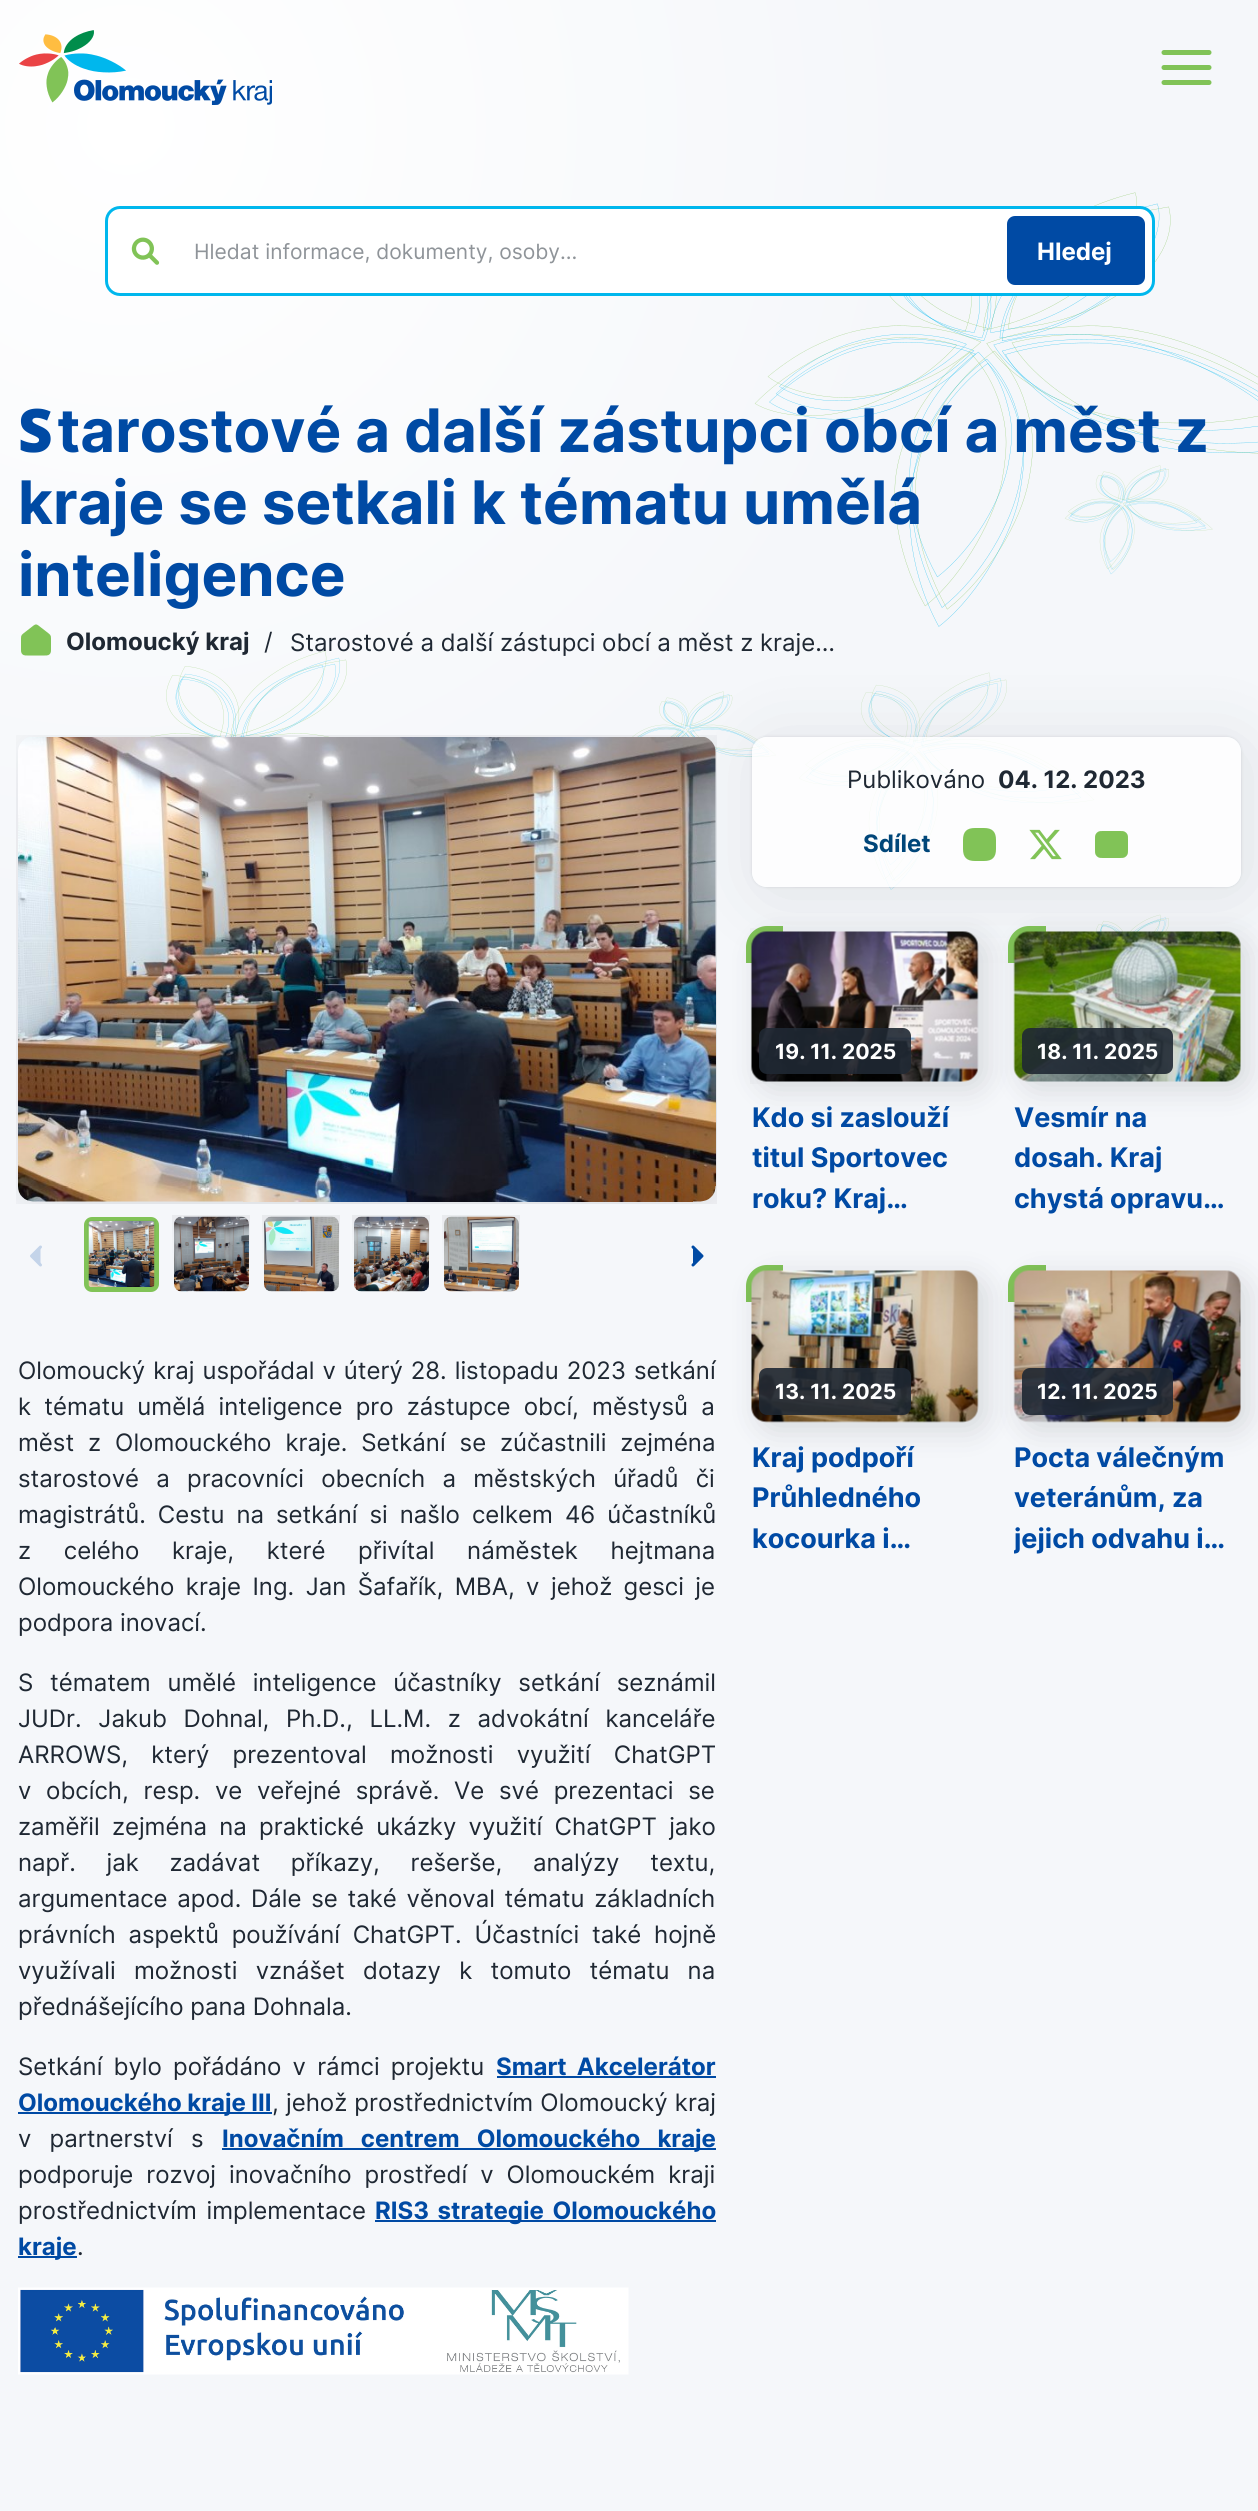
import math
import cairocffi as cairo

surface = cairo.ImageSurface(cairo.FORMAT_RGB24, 1258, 2511)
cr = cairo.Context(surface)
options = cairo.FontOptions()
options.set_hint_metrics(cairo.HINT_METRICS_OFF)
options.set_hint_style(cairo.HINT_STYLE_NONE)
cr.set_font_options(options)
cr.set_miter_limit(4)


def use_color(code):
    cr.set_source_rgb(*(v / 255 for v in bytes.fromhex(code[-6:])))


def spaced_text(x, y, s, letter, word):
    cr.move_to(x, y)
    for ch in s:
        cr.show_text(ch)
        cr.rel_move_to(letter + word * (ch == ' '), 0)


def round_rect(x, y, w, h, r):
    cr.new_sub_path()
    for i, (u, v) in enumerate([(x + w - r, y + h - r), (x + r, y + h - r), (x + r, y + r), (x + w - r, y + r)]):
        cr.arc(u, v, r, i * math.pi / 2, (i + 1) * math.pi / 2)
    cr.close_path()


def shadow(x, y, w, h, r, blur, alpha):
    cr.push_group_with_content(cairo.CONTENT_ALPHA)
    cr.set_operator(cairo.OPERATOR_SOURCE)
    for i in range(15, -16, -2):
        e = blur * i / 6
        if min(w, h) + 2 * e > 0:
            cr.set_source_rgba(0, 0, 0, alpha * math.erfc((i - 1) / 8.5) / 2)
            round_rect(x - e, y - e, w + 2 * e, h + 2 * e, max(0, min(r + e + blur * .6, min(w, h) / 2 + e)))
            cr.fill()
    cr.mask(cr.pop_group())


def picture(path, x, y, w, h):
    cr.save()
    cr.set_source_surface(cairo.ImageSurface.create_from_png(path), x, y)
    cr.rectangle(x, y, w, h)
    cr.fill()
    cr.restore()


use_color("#f5f7fa")
cr.paint()
picture("img1.png", 150, 192, 1108, 740)
gradient = cairo.RadialGradient(126, 126, 0, 126, 126, 1602)
gradient.add_color_stop_rgba(0, 1, 1, 1, 1)
gradient.add_color_stop_rgba(0.5, 1, 1, 1, 0)
cr.set_source(gradient)
cr.rectangle(0, 0, 899, 894)
cr.fill()
picture("img2.png", 19, 30, 253, 75)
cr.new_path()
cr.move_to(1164, 67.5)
cr.line_to(1209, 67.5)
cr.move_to(1164, 52.5)
cr.line_to(1209, 52.5)
cr.move_to(1164, 82.5)
cr.line_to(1209, 82.5)
use_color("#81c357")
cr.set_line_width(5)
cr.set_line_cap(cairo.LINE_CAP_ROUND)
cr.set_line_join(cairo.LINE_JOIN_ROUND)
cr.stroke()
use_color("#ffffff")
round_rect(106.5, 207.5, 1047, 87, 13.5)
cr.fill_preserve()
use_color("#00b7ed")
cr.set_line_width(3)
cr.set_line_cap(cairo.LINE_CAP_BUTT)
cr.set_line_join(cairo.LINE_JOIN_MITER)
cr.stroke()
picture("img3.png", 131, 237, 29, 28)
cr.select_font_face("Inter")
cr.set_font_size(21)
use_color("#8f9499")
cr.move_to(194, 259)
cr.show_text("Hledat informace, dokumenty, osoby...")
use_color("#004aa4")
round_rect(1007, 216, 138, 69, 8)
cr.fill()
cr.select_font_face("Inter", cairo.FONT_SLANT_NORMAL, cairo.FONT_WEIGHT_BOLD)
cr.set_font_size(24)
use_color("#ffffff")
cr.move_to(1037, 260)
cr.show_text("Hledej")
cr.select_font_face("Noto Sans Black")
cr.set_font_size(60)
use_color("#004aa4")
cr.move_to(18, 452)
cr.show_text("S")
cr.select_font_face("Inter", cairo.FONT_SLANT_NORMAL, cairo.FONT_WEIGHT_BOLD)
cr.move_to(57, 452)
cr.show_text("tarostové a další zástupci obcí a měst z")
cr.move_to(18, 524)
cr.show_text("kraje se setkali k tématu umělá")
cr.move_to(18, 596)
cr.show_text("inteligence")
picture("img4.png", 21, 624, 30, 32)
cr.set_font_size(24)
use_color("#1f2833")
cr.move_to(66, 650)
cr.show_text("Olomoucký kraj")
cr.select_font_face("Inter")
cr.move_to(264, 650)
cr.show_text("/")
cr.move_to(290, 651)
cr.show_text("Starostové a další zástupci obcí a měst z kraje…")
cr.save()
cr.set_fill_rule(cairo.FILL_RULE_EVEN_ODD)
cr.new_path()
cr.move_to(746, 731)
cr.line_to(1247, 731)
cr.line_to(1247, 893)
cr.line_to(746, 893)
cr.close_path()
cr.move_to(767, 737)
cr.line_to(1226, 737)
cr.curve_to(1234.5, 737, 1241, 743.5, 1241, 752)
cr.line_to(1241, 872)
cr.curve_to(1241, 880.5, 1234.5, 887, 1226, 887)
cr.line_to(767, 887)
cr.curve_to(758.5, 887, 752, 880.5, 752, 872)
cr.line_to(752, 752)
cr.curve_to(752, 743.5, 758.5, 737, 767, 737)
cr.close_path()
cr.clip()
use_color("#1f2833")
shadow(752, 737, 489, 150, 15, 1.5, 0.15)
cr.restore()
cr.save()
cr.set_fill_rule(cairo.FILL_RULE_EVEN_ODD)
cr.new_path()
cr.move_to(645, 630)
cr.line_to(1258, 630)
cr.line_to(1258, 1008)
cr.line_to(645, 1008)
cr.close_path()
cr.move_to(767, 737)
cr.line_to(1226, 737)
cr.curve_to(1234.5, 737, 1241, 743.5, 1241, 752)
cr.line_to(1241, 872)
cr.curve_to(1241, 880.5, 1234.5, 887, 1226, 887)
cr.line_to(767, 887)
cr.curve_to(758.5, 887, 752, 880.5, 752, 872)
cr.line_to(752, 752)
cr.curve_to(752, 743.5, 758.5, 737, 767, 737)
cr.close_path()
cr.clip()
use_color("#1f2833")
shadow(759, 744, 489, 150, 15, 37.5, 0.1)
cr.restore()
cr.set_source_rgba(1, 1, 1, 0.8)
round_rect(752, 737, 489, 150, 15)
cr.fill()
use_color("#1f2833")
cr.move_to(847, 788)
cr.show_text("Publikováno")
cr.select_font_face("Inter", cairo.FONT_SLANT_NORMAL, cairo.FONT_WEIGHT_BOLD)
cr.move_to(998, 788)
cr.show_text("04. 12. 2023")
use_color("#004679")
cr.move_to(863, 852)
cr.show_text("Sdílet")
picture("img5.png", 963, 828, 33, 33)
picture("img6.png", 1029, 829, 33, 31)
picture("img7.png", 1095, 831, 33, 27)
use_color("#81c357")
cr.new_path()
cr.move_to(767, 926)
cr.line_to(783, 926)
cr.line_to(783, 963)
cr.line_to(746, 963)
cr.line_to(746, 947)
cr.curve_to(746, 935.5, 755.5, 926, 767, 926)
cr.close_path()
cr.fill()
use_color("#1f2833")
shadow(759, 939, 227, 150, 15, 15, 0.15)
picture("img8.png", 750, 928, 229, 156)
cr.set_source_rgba(0.122, 0.157, 0.2, 0.9)
round_rect(759, 1028, 152, 46, 8)
cr.fill()
cr.set_font_size(21)
use_color("#ffffff")
cr.move_to(775, 1059)
cr.show_text("19. 11. 2025")
cr.set_font_size(27)
use_color("#004aa4")
cr.move_to(752, 1127)
cr.show_text("Kdo si zaslouží")
cr.move_to(752, 1167)
cr.show_text("titul Sportovec")
cr.move_to(752, 1208)
cr.show_text("roku? Kraj…")
use_color("#81c357")
cr.new_path()
cr.move_to(1029, 926)
cr.line_to(1046, 926)
cr.line_to(1046, 963)
cr.line_to(1008, 963)
cr.line_to(1008, 947)
cr.curve_to(1008, 935.5, 1017.5, 926, 1029, 926)
cr.close_path()
cr.fill()
use_color("#1f2833")
shadow(1022, 939, 226, 150, 15, 15, 0.15)
picture("img9.png", 1013, 931, 228, 151)
cr.set_source_rgba(0.122, 0.157, 0.2, 0.9)
round_rect(1022, 1028, 151, 46, 8)
cr.fill()
cr.set_font_size(21)
use_color("#ffffff")
cr.move_to(1037, 1059)
cr.show_text("18. 11. 2025")
cr.set_font_size(27)
use_color("#004aa4")
cr.move_to(1014, 1127)
cr.show_text("Vesmír na")
cr.move_to(1014, 1167)
cr.show_text("dosah. Kraj")
cr.move_to(1014, 1208)
cr.show_text("chystá opravu…")
use_color("#81c357")
cr.new_path()
cr.move_to(767, 1265)
cr.line_to(783, 1265)
cr.line_to(783, 1302)
cr.line_to(746, 1302)
cr.line_to(746, 1286)
cr.curve_to(746, 1274.5, 755.5, 1265, 767, 1265)
cr.close_path()
cr.fill()
use_color("#1f2833")
shadow(759, 1278, 227, 152, 15, 15, 0.15)
picture("img10.png", 751, 1270, 228, 153)
cr.set_source_rgba(0.122, 0.157, 0.2, 0.9)
round_rect(759, 1368, 152, 47, 8)
cr.fill()
cr.set_font_size(21)
use_color("#ffffff")
cr.move_to(775, 1399)
cr.show_text("13. 11. 2025")
cr.set_font_size(27)
use_color("#004aa4")
cr.move_to(752, 1467)
cr.show_text("Kraj podpoří")
cr.move_to(752, 1507)
cr.show_text("Průhledného")
cr.move_to(752, 1548)
cr.show_text("kocourka i…")
use_color("#81c357")
cr.new_path()
cr.move_to(1029, 1265)
cr.line_to(1046, 1265)
cr.line_to(1046, 1302)
cr.line_to(1008, 1302)
cr.line_to(1008, 1286)
cr.curve_to(1008, 1274.5, 1017.5, 1265, 1029, 1265)
cr.close_path()
cr.fill()
use_color("#1f2833")
shadow(1022, 1278, 226, 152, 15, 15, 0.15)
picture("img11.png", 1013, 1270, 228, 153)
cr.set_source_rgba(0.122, 0.157, 0.2, 0.9)
round_rect(1022, 1368, 151, 47, 8)
cr.fill()
cr.set_font_size(21)
use_color("#ffffff")
cr.move_to(1037, 1399)
cr.show_text("12. 11. 2025")
cr.set_font_size(27)
use_color("#004aa4")
cr.move_to(1014, 1467)
cr.show_text("Pocta válečným")
cr.move_to(1014, 1507)
cr.show_text("veteránům, za")
cr.save()
cr.rectangle(1014, 1437, 227, 122)
cr.clip()
cr.move_to(1014, 1548)
cr.show_text("jejich odvahu i…")
cr.restore()
picture("img12.png", 16, 735, 701, 469)
use_color("#c4d4e9")
cr.new_path()
cr.move_to(40.5, 1265)
cr.line_to(31.5, 1256)
cr.line_to(40.5, 1247)
cr.fill_preserve()
cr.set_line_cap(cairo.LINE_CAP_ROUND)
cr.set_line_join(cairo.LINE_JOIN_ROUND)
cr.stroke()
round_rect(86.5, 1219.5, 70, 70, 5.5)
use_color("#81c357")
cr.set_line_width(5)
cr.set_line_cap(cairo.LINE_CAP_BUTT)
cr.set_line_join(cairo.LINE_JOIN_MITER)
cr.stroke()
picture("img13.png", 87, 1220, 69, 67)
picture("img14.png", 172, 1215, 78, 77)
picture("img15.png", 262, 1215, 78, 77)
picture("img16.png", 352, 1215, 78, 77)
picture("img17.png", 442, 1215, 78, 77)
use_color("#004aa4")
cr.new_path()
cr.move_to(693, 1265)
cr.line_to(702, 1256)
cr.line_to(693, 1247)
cr.fill_preserve()
cr.set_line_width(3)
cr.set_line_cap(cairo.LINE_CAP_ROUND)
cr.set_line_join(cairo.LINE_JOIN_ROUND)
cr.stroke()
cr.select_font_face("Inter")
cr.set_font_size(24)
use_color("#1f2833")
spaced_text(18, 1379, "Olomoucký kraj uspořádal v úterý 28. listopadu 2023 setkání", 0, 1.25)
spaced_text(18, 1415, "k tématu umělá inteligence pro zástupce obcí, městysů a", 0, 6.5)
spaced_text(18, 1451, "měst z Olomouckého kraje. Setkání se zúčastnili zejména", 0, 7.25)
spaced_text(18, 1487, "starostové a pracovníci obecních a městských úřadů či", 0, 10.5)
spaced_text(18, 1523, "magistrátů. Cestu na setkání si našlo celkem 46 účastníků", 0, 5.25)
spaced_text(18, 1559, "z celého kraje, které přivítal náměstek hejtmana", 0, 26)
spaced_text(18, 1595, "Olomouckého kraje Ing. Jan Šafařík, MBA, v jehož gesci je", 0, 4.75)
cr.move_to(18, 1631)
cr.show_text("podpora inovací.")
spaced_text(18, 1691, "S tématem umělé inteligence účastníky setkání seznámil", 0, 10)
spaced_text(18, 1727, "JUDr. Jakub Dohnal, Ph.D., LL.M. z advokátní kanceláře", 0, 10)
spaced_text(18, 1763, "ARROWS, který prezentoval možnosti využití ChatGPT", 0, 16.5)
spaced_text(18, 1799, "v obcích, resp. ve veřejné správě. Ve své prezentaci se", 0, 8)
spaced_text(18, 1835, "zaměřil zejména na praktické ukázky využití ChatGPT jako", 0, 5.5)
spaced_text(18, 1871, "např. jak zadávat příkazy, rešerše, analýzy textu,", 0, 24)
spaced_text(18, 1907, "argumentace apod. Dále se také věnoval tématu základních", 0, 3)
spaced_text(18, 1943, "právních aspektů používání ChatGPT. Účastníci také hojně", 0, 6)
spaced_text(18, 1979, "využívali možnosti vznášet dotazy k tomuto tématu na", 0, 11.5)
cr.move_to(18, 2015)
cr.show_text("přednášejícího pana Dohnala.")
spaced_text(18, 2075, "Setkání bylo pořádáno v rámci projektu", 0, 4.5)
cr.select_font_face("Inter", cairo.FONT_SLANT_NORMAL, cairo.FONT_WEIGHT_BOLD)
use_color("#004aa4")
spaced_text(496, 2075, "Smart Akcelerátor", 0, 4.5)
cr.rectangle(497, 2076, 219, 2)
cr.fill()
cr.rectangle(18, 2112, 254, 2)
cr.fill()
cr.move_to(18, 2111)
cr.show_text("Olomouckého kraje III")
cr.select_font_face("Inter")
use_color("#1f2833")
spaced_text(272, 2111, ", jehož prostřednictvím Olomoucký kraj", 0, 0.5)
spaced_text(18, 2147, "v partnerství s", 0, 11.5)
use_color("#004aa4")
cr.rectangle(222, 2148, 494, 2)
cr.fill()
cr.select_font_face("Inter", cairo.FONT_SLANT_NORMAL, cairo.FONT_WEIGHT_BOLD)
spaced_text(222, 2147, "Inovačním centrem Olomouckého kraje", 0, 11.5)
cr.select_font_face("Inter")
use_color("#1f2833")
spaced_text(18, 2183, "podporuje rozvoj inovačního prostředí v Olomouckém kraji", 0, 6.25)
spaced_text(18, 2219, "prostřednictvím implementace", 0, 3)
use_color("#004aa4")
cr.rectangle(375, 2220, 341, 2)
cr.fill()
cr.select_font_face("Inter", cairo.FONT_SLANT_NORMAL, cairo.FONT_WEIGHT_BOLD)
spaced_text(375, 2219, "RIS3 strategie Olomouckého", 0, 3)
cr.rectangle(18, 2256, 59, 2)
cr.fill()
cr.move_to(18, 2255)
cr.show_text("kraje")
cr.select_font_face("Inter")
use_color("#1f2833")
cr.move_to(77, 2255)
cr.show_text(".")
picture("img18.png", 18, 2287, 611, 88)
surface.write_to_png("result.png")
